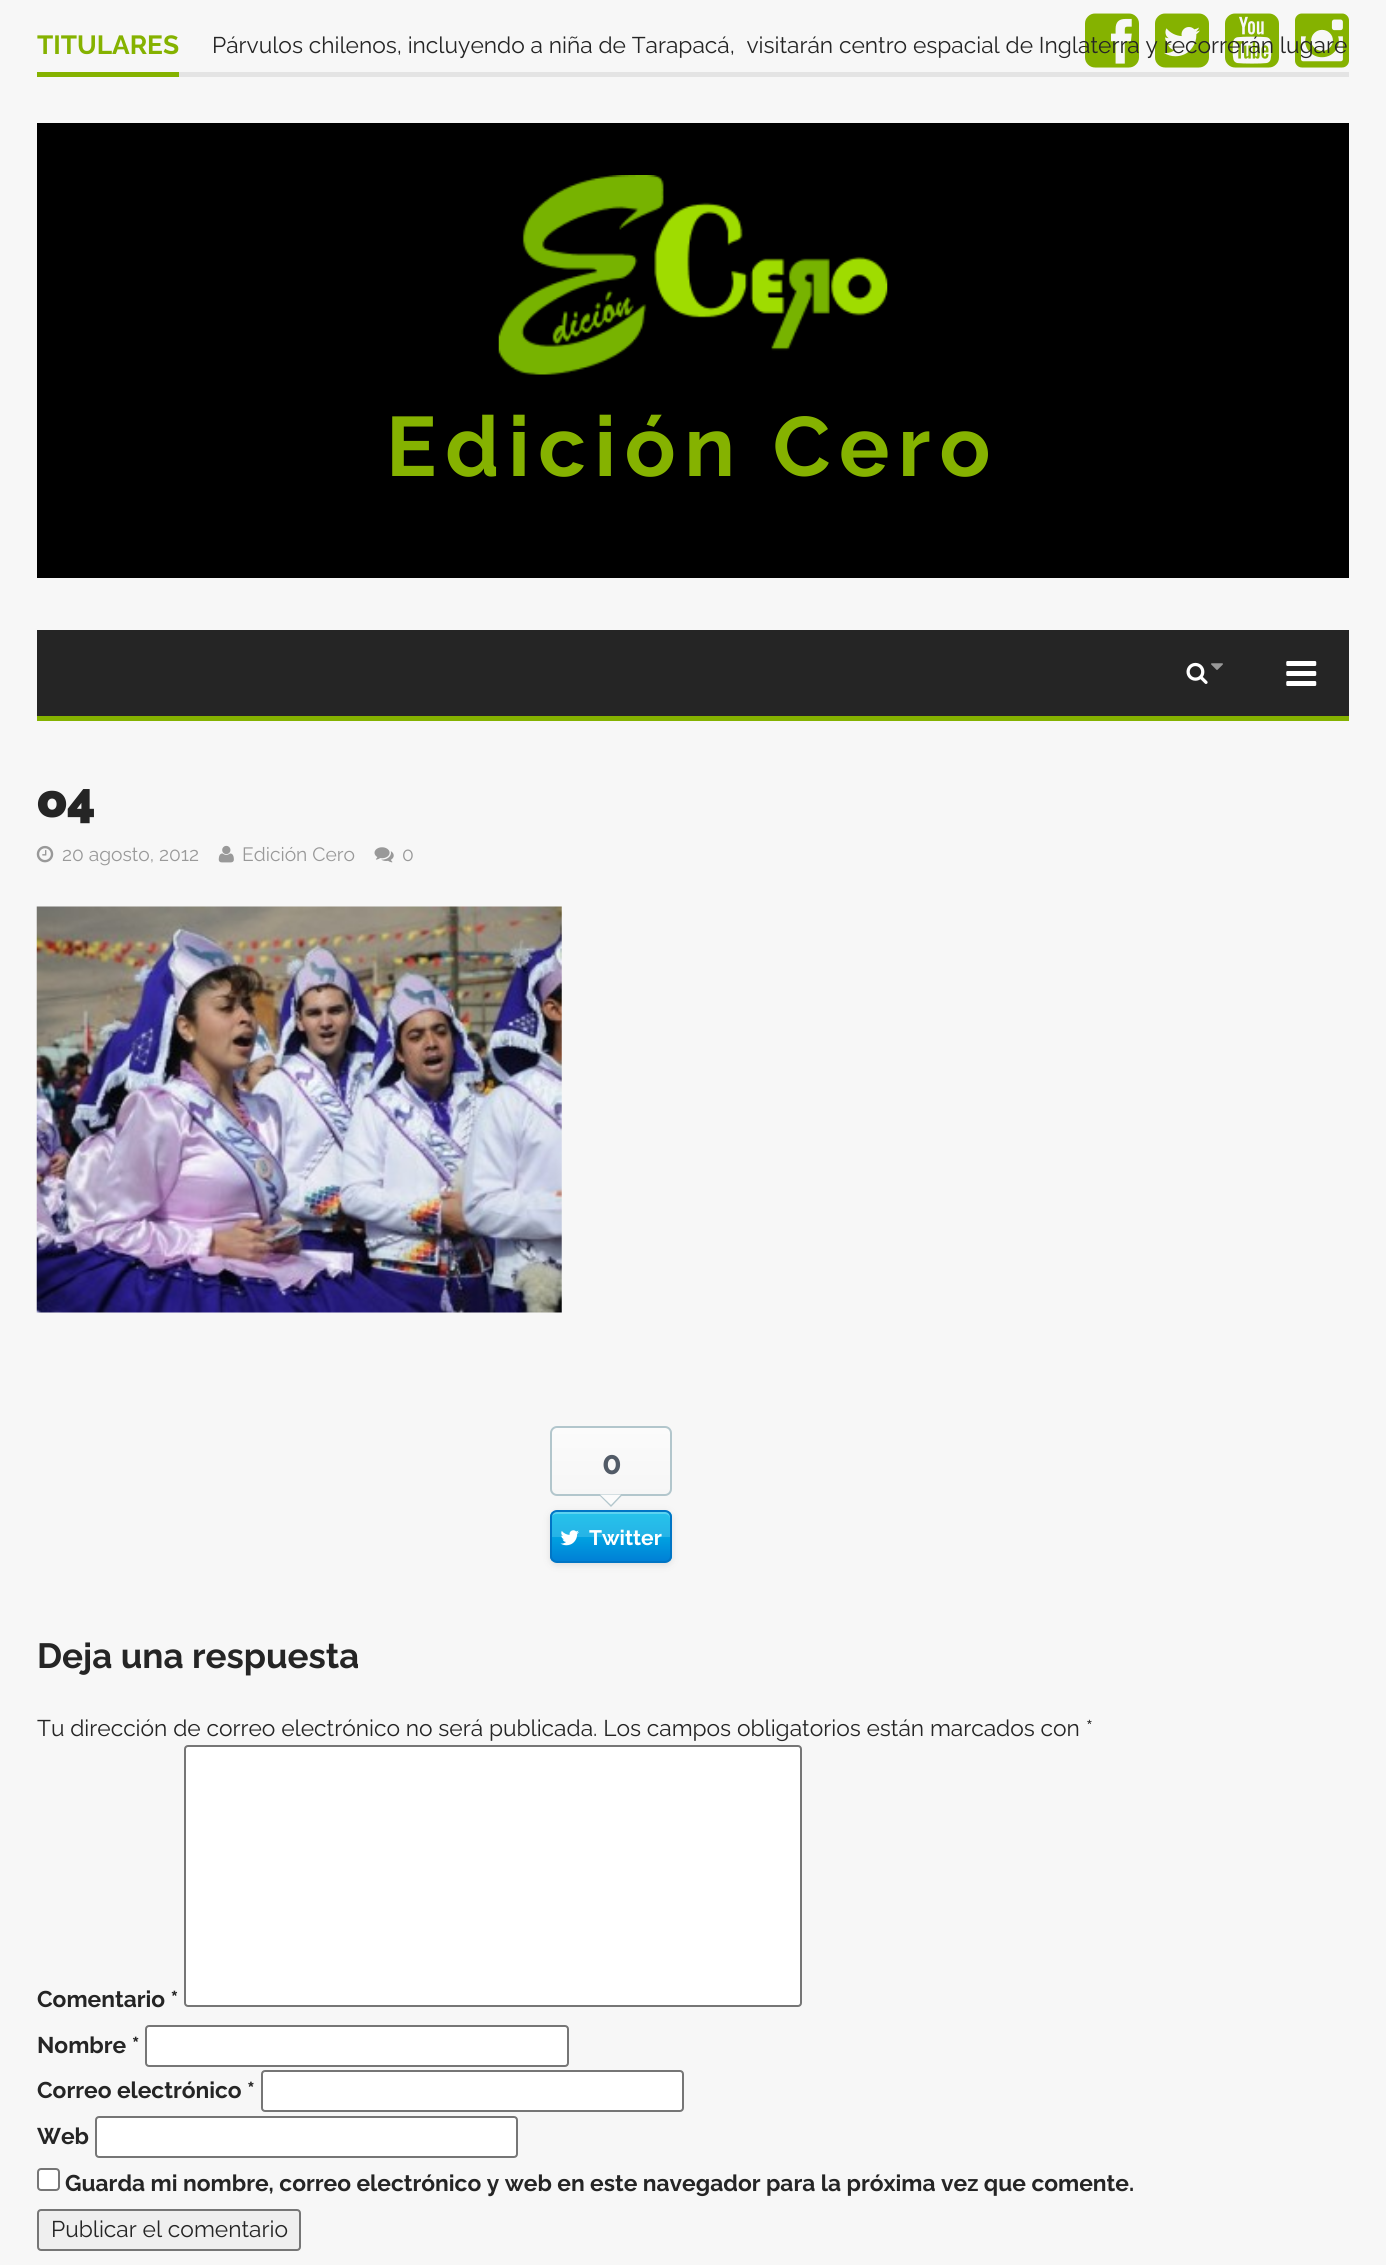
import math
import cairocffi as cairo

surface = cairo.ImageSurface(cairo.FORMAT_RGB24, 1386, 2265)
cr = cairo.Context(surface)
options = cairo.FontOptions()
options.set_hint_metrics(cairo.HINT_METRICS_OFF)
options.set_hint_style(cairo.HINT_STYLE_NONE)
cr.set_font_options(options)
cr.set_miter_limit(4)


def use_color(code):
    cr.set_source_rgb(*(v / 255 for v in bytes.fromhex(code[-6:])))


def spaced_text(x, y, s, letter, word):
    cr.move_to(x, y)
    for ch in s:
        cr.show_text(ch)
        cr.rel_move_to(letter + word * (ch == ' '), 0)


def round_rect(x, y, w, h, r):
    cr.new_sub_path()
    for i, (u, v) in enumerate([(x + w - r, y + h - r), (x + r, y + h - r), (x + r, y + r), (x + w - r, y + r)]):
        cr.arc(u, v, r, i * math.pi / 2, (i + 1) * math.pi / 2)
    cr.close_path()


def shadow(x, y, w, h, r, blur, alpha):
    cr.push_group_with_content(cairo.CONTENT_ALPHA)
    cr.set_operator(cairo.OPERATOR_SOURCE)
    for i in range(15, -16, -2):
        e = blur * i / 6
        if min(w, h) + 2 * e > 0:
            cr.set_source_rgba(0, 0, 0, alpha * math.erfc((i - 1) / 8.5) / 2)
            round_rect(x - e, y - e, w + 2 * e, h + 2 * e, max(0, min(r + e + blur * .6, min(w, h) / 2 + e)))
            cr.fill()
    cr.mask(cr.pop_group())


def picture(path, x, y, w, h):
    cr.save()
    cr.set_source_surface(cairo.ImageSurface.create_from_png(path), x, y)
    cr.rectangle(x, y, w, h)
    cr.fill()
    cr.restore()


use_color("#f7f7f7")
cr.paint()
use_color("#e4e4e4")
cr.rectangle(179, 72, 1170, 5)
cr.fill()
use_color("#85b200")
cr.rectangle(37, 72, 142, 5)
cr.fill()
cr.select_font_face("Raleway", cairo.FONT_SLANT_NORMAL, cairo.FONT_WEIGHT_BOLD)
cr.set_font_size(26.25)
cr.move_to(37, 54)
cr.show_text("TITULARES")
picture("img1.png", 1085, 13, 54, 55)
picture("img2.png", 1155, 13, 54, 55)
picture("img3.png", 1225, 13, 54, 55)
picture("img4.png", 1295, 13, 54, 55)
cr.select_font_face("Raleway")
cr.set_font_size(22.75)
use_color("#252525")
cr.move_to(212, 53)
cr.show_text("Párvulos chilenos, incluyendo a niña de Tarapacá,  visitarán centro espacial de Inglaterra y recorrerán lugare")
use_color("#000000")
cr.rectangle(37, 123, 1312, 455)
cr.fill()
picture("img5.png", 498, 175, 390, 200)
cr.select_font_face("Raleway", cairo.FONT_SLANT_NORMAL, cairo.FONT_WEIGHT_BOLD)
cr.set_font_size(84)
use_color("#85b200")
spaced_text(386, 476, "Edición Cero", 8.75, 0)
cr.rectangle(37, 716, 1312, 5)
cr.fill()
use_color("#252525")
cr.rectangle(37, 630, 1312, 86)
cr.fill()
picture("img6.png", 1186, 662, 22, 22)
picture("img7.png", 1211, 663, 12, 7)
picture("img8.png", 1286, 661, 31, 25)
cr.select_font_face("Raleway Black")
cr.set_font_size(49)
cr.move_to(37, 817)
cr.show_text("o4")
picture("img9.png", 36, 845, 18, 18)
cr.select_font_face("Raleway")
cr.set_font_size(19.25)
use_color("#999999")
cr.move_to(62, 861)
cr.show_text("20 agosto, 2012")
picture("img10.png", 218, 845, 16, 18)
cr.move_to(242, 861)
cr.show_text("Edición Cero")
picture("img11.png", 374, 847, 20, 16)
cr.move_to(402, 861)
cr.show_text("0")
picture("img12.png", 36, 906, 526, 407)
cr.save()
round_rect(550, 1426, 122, 70, 7)
cr.clip()
gradient = cairo.LinearGradient(611, 1428, 611, 1495)
gradient.add_color_stop_rgba(0, 0.984, 0.984, 0.984, 1)
gradient.add_color_stop_rgba(1, 0.965, 0.965, 0.965, 1)
cr.set_source(gradient)
cr.rectangle(550, 1428, 122, 67)
cr.fill()
cr.restore()
round_rect(551, 1427, 120, 68, 6)
use_color("#b2c6cc")
cr.stroke()
cr.select_font_face("Raleway", cairo.FONT_SLANT_NORMAL, cairo.FONT_WEIGHT_BOLD)
cr.set_font_size(32)
use_color("#525b67")
cr.move_to(602, 1474)
cr.show_text("0")
use_color("#b2c6cc")
cr.new_path()
cr.move_to(598.5, 1494.5)
cr.line_to(623, 1494.5)
cr.line_to(611, 1507)
cr.close_path()
cr.fill()
use_color("#fbfbfb")
cr.new_path()
cr.move_to(600, 1494.5)
cr.line_to(621, 1494.5)
cr.line_to(611, 1505)
cr.close_path()
cr.fill()
use_color("#dddddd")
shadow(550, 1512, 122, 53, 7, 3.5, 1)
cr.save()
round_rect(550, 1510, 122, 53, 7)
cr.clip()
gradient = cairo.LinearGradient(611, 1512, 611, 1561)
gradient.add_color_stop_rgba(0, 0.149, 0.765, 0.922, 1)
gradient.add_color_stop_rgba(0.5, 0.149, 0.702, 0.902, 1)
gradient.add_color_stop_rgba(0.51, 0, 0.635, 0.882, 1)
gradient.add_color_stop_rgba(1, 0, 0.502, 0.839, 1)
cr.set_source(gradient)
cr.rectangle(550, 1512, 122, 49)
cr.fill()
cr.restore()
use_color("#5cd3f1")
cr.new_path()
cr.move_to(556, 1514)
cr.line_to(665, 1514)
cr.curve_to(668, 1514, 670, 1516, 670, 1519)
cr.line_to(670, 1517)
cr.curve_to(670, 1514, 668, 1512, 665, 1512)
cr.line_to(556, 1512)
cr.curve_to(553, 1512, 551, 1514, 551, 1517)
cr.line_to(551, 1519)
cr.curve_to(551, 1516, 554, 1514, 556, 1514)
cr.close_path()
cr.fill()
round_rect(551, 1511, 120, 51, 6)
use_color("#0075c5")
cr.stroke()
picture("img13.png", 560, 1530, 19, 16)
cr.set_font_size(21)
use_color("#ffffff")
cr.move_to(589, 1545)
cr.show_text("Twitter")
cr.set_font_size(35)
use_color("#252525")
cr.move_to(37, 1668)
cr.show_text("Deja una respuesta")
cr.select_font_face("Raleway")
cr.set_font_size(22.75)
cr.move_to(37, 1736)
cr.show_text("Tu dirección de correo electrónico no será publicada. Los campos obligatorios están marcados con *")
cr.select_font_face("Raleway", cairo.FONT_SLANT_NORMAL, cairo.FONT_WEIGHT_BOLD)
cr.move_to(37, 2007)
cr.show_text("Comentario *")
use_color("#ffffff")
round_rect(185, 1746, 616, 260, 3)
cr.fill_preserve()
use_color("#767676")
cr.stroke()
use_color("#252525")
cr.move_to(37, 2053)
cr.show_text("Nombre *")
use_color("#ffffff")
round_rect(146, 2026, 422, 40, 3)
cr.fill_preserve()
use_color("#767676")
cr.stroke()
use_color("#252525")
cr.move_to(37, 2098)
cr.show_text("Correo electrónico *")
use_color("#ffffff")
round_rect(262, 2071, 421, 40, 3)
cr.fill_preserve()
use_color("#767676")
cr.stroke()
use_color("#252525")
cr.move_to(37, 2144)
cr.show_text("Web")
use_color("#ffffff")
round_rect(96, 2117, 421, 40, 3)
cr.fill_preserve()
use_color("#767676")
cr.stroke()
use_color("#ffffff")
round_rect(38, 2169, 21, 21, 3)
cr.fill_preserve()
use_color("#767676")
cr.stroke()
use_color("#252525")
cr.move_to(65, 2191)
cr.show_text("Guarda mi nombre, correo electrónico y web en este navegador para la próxima vez que comente.")
use_color("#efefef")
round_rect(38, 2210, 262, 40, 3)
cr.fill_preserve()
use_color("#767676")
cr.stroke()
cr.select_font_face("Raleway")
use_color("#252525")
cr.move_to(51, 2237)
cr.show_text("Publicar el comentario")
surface.write_to_png("result.png")
